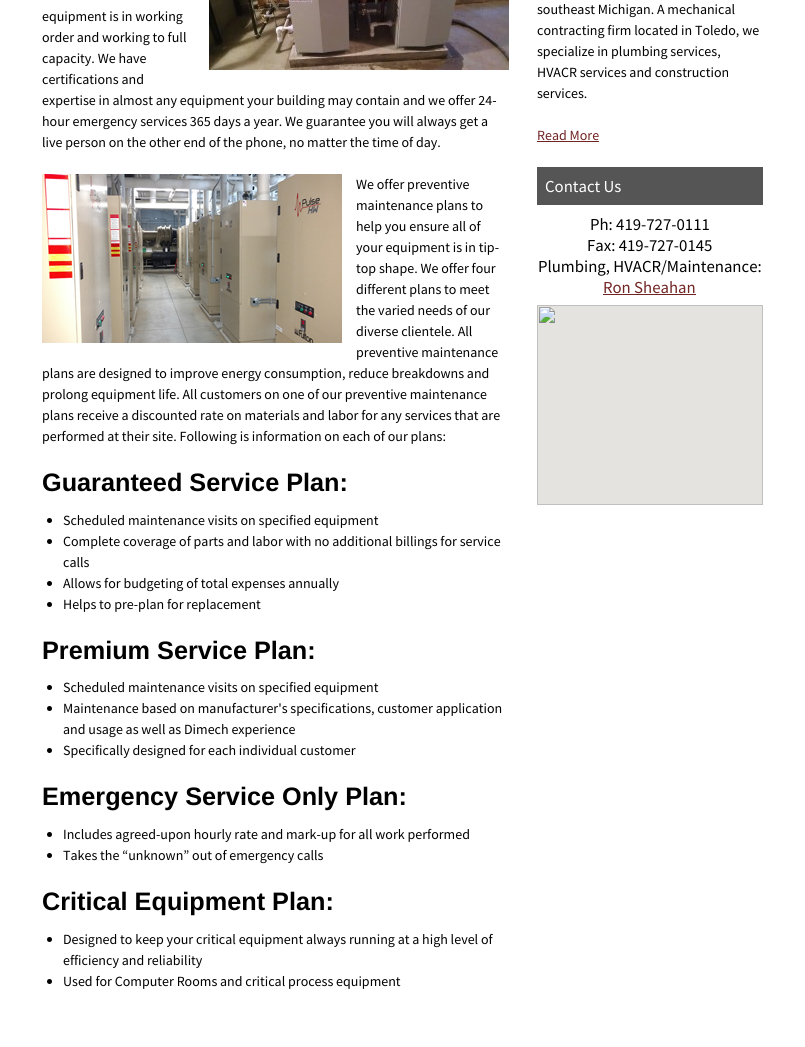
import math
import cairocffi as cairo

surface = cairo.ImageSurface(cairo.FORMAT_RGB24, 805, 1047)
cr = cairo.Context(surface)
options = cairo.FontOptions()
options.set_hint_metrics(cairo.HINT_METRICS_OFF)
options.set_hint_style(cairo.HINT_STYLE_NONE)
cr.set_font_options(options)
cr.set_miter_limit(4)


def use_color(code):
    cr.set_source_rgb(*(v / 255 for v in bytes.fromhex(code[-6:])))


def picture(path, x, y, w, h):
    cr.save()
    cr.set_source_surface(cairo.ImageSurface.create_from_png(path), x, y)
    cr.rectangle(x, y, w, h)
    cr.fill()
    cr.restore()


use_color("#ffffff")
cr.paint()
picture("img1.png", 209, 0, 300, 70)
cr.select_font_face("Source Sans Pro")
cr.set_font_size(14)
use_color("#000000")
cr.move_to(42, 21)
cr.show_text("equipment is in working")
cr.move_to(42, 42)
cr.show_text("order and working to full")
cr.move_to(42, 63)
cr.show_text("capacity. We have")
cr.move_to(42, 84)
cr.show_text("certifications and")
cr.move_to(42, 105)
cr.show_text("expertise in almost any equipment your building may contain and we offer 24-")
cr.move_to(42, 126)
cr.show_text("hour emergency services 365 days a year. We guarantee you will always get a")
cr.move_to(42, 147)
cr.show_text("live person on the other end of the phone, no matter the time of day.")
picture("img2.png", 42, 174, 300, 169)
cr.move_to(356, 189)
cr.show_text("We offer preventive")
cr.move_to(356, 210)
cr.show_text("maintenance plans to")
cr.move_to(356, 231)
cr.show_text("help you ensure all of")
cr.move_to(356, 252)
cr.show_text("your equipment is in tip-")
cr.move_to(356, 273)
cr.show_text("top shape. We offer four")
cr.move_to(356, 294)
cr.show_text("different plans to meet")
cr.move_to(356, 315)
cr.show_text("the varied needs of our")
cr.move_to(356, 336)
cr.show_text("diverse clientele. All")
cr.move_to(356, 357)
cr.show_text("preventive maintenance")
cr.move_to(42, 378)
cr.show_text("plans are designed to improve energy consumption, reduce breakdowns and")
cr.move_to(42, 399)
cr.show_text("prolong equipment life. All customers on one of our preventive maintenance")
cr.move_to(42, 420)
cr.show_text("plans receive a discounted rate on materials and labor for any services that are")
cr.move_to(42, 441)
cr.show_text("performed at their site. Following is information on each of our plans:")
cr.select_font_face("Liberation Sans", cairo.FONT_SLANT_NORMAL, cairo.FONT_WEIGHT_BOLD)
cr.set_font_size(25.25)
cr.move_to(42, 491)
cr.show_text("Guaranteed Service Plan:")
cr.new_path()
cr.arc(49.5, 520.5, 2.5, 0, 2 * math.pi)
cr.fill()
cr.select_font_face("Source Sans Pro")
cr.set_font_size(14)
cr.move_to(63, 525)
cr.show_text("Scheduled maintenance visits on specified equipment")
cr.new_path()
cr.arc(49.5, 541.5, 2.5, 0, 2 * math.pi)
cr.fill()
cr.move_to(63, 546)
cr.show_text("Complete coverage of parts and labor with no additional billings for service")
cr.move_to(63, 567)
cr.show_text("calls")
cr.new_path()
cr.arc(49.5, 583.5, 2.5, 0, 2 * math.pi)
cr.fill()
cr.move_to(63, 588)
cr.show_text("Allows for budgeting of total expenses annually")
cr.new_path()
cr.arc(49.5, 604.5, 2.5, 0, 2 * math.pi)
cr.fill()
cr.move_to(63, 609)
cr.show_text("Helps to pre-plan for replacement")
cr.select_font_face("Liberation Sans", cairo.FONT_SLANT_NORMAL, cairo.FONT_WEIGHT_BOLD)
cr.set_font_size(25.25)
cr.move_to(42, 659)
cr.show_text("Premium Service Plan:")
cr.new_path()
cr.arc(49.5, 687.5, 2.5, 0, 2 * math.pi)
cr.fill()
cr.select_font_face("Source Sans Pro")
cr.set_font_size(14)
cr.move_to(63, 692)
cr.show_text("Scheduled maintenance visits on specified equipment")
cr.new_path()
cr.arc(49.5, 708.5, 2.5, 0, 2 * math.pi)
cr.fill()
cr.move_to(63, 713)
cr.show_text("Maintenance based on manufacturer's specifications, customer application")
cr.move_to(63, 734)
cr.show_text("and usage as well as Dimech experience")
cr.new_path()
cr.arc(49.5, 750.5, 2.5, 0, 2 * math.pi)
cr.fill()
cr.move_to(63, 755)
cr.show_text("Specifically designed for each individual customer")
cr.select_font_face("Liberation Sans", cairo.FONT_SLANT_NORMAL, cairo.FONT_WEIGHT_BOLD)
cr.set_font_size(25.25)
cr.move_to(42, 805)
cr.show_text("Emergency Service Only Plan:")
cr.new_path()
cr.arc(49.5, 834.5, 2.5, 0, 2 * math.pi)
cr.fill()
cr.select_font_face("Source Sans Pro")
cr.set_font_size(14)
cr.move_to(63, 839)
cr.show_text("Includes agreed-upon hourly rate and mark-up for all work performed")
cr.new_path()
cr.arc(49.5, 855.5, 2.5, 0, 2 * math.pi)
cr.fill()
cr.move_to(63, 860)
cr.show_text("Takes the “unknown” out of emergency calls")
cr.select_font_face("Liberation Sans", cairo.FONT_SLANT_NORMAL, cairo.FONT_WEIGHT_BOLD)
cr.set_font_size(25.25)
cr.move_to(42, 910)
cr.show_text("Critical Equipment Plan:")
cr.new_path()
cr.arc(49.5, 939.5, 2.5, 0, 2 * math.pi)
cr.fill()
cr.select_font_face("Source Sans Pro")
cr.set_font_size(14)
cr.move_to(63, 944)
cr.show_text("Designed to keep your critical equipment always running at a high level of")
cr.move_to(63, 965)
cr.show_text("efficiency and reliability")
cr.new_path()
cr.arc(49.5, 981.5, 2.5, 0, 2 * math.pi)
cr.fill()
cr.move_to(63, 986)
cr.show_text("Used for Computer Rooms and critical process equipment")
cr.move_to(537, 14)
cr.show_text("southeast Michigan. A mechanical")
cr.move_to(537, 35)
cr.show_text("contracting firm located in Toledo, we")
cr.move_to(537, 56)
cr.show_text("specialize in plumbing services,")
cr.move_to(537, 77)
cr.show_text("HVACR services and construction")
cr.move_to(537, 98)
cr.show_text("services.")
use_color("#712424")
cr.move_to(537, 140)
cr.show_text("Read More")
cr.rectangle(537, 141, 62, 1)
cr.fill()
use_color("#555555")
cr.rectangle(537, 167, 226, 38)
cr.fill()
cr.set_font_size(16.75)
use_color("#ffffff")
cr.move_to(545, 192)
cr.show_text("Contact Us")
use_color("#000000")
cr.move_to(590, 230)
cr.show_text("Ph: 419-727-0111")
cr.move_to(587, 251)
cr.show_text("Fax: 419-727-0145")
cr.move_to(538, 272)
cr.show_text("Plumbing, HVACR/Maintenance:")
use_color("#712424")
cr.move_to(603, 293)
cr.show_text("Ron Sheahan")
cr.rectangle(603, 294, 93, 1)
cr.fill()
picture("img3.png", 537, 305, 226, 200)
surface.write_to_png("result.png")
